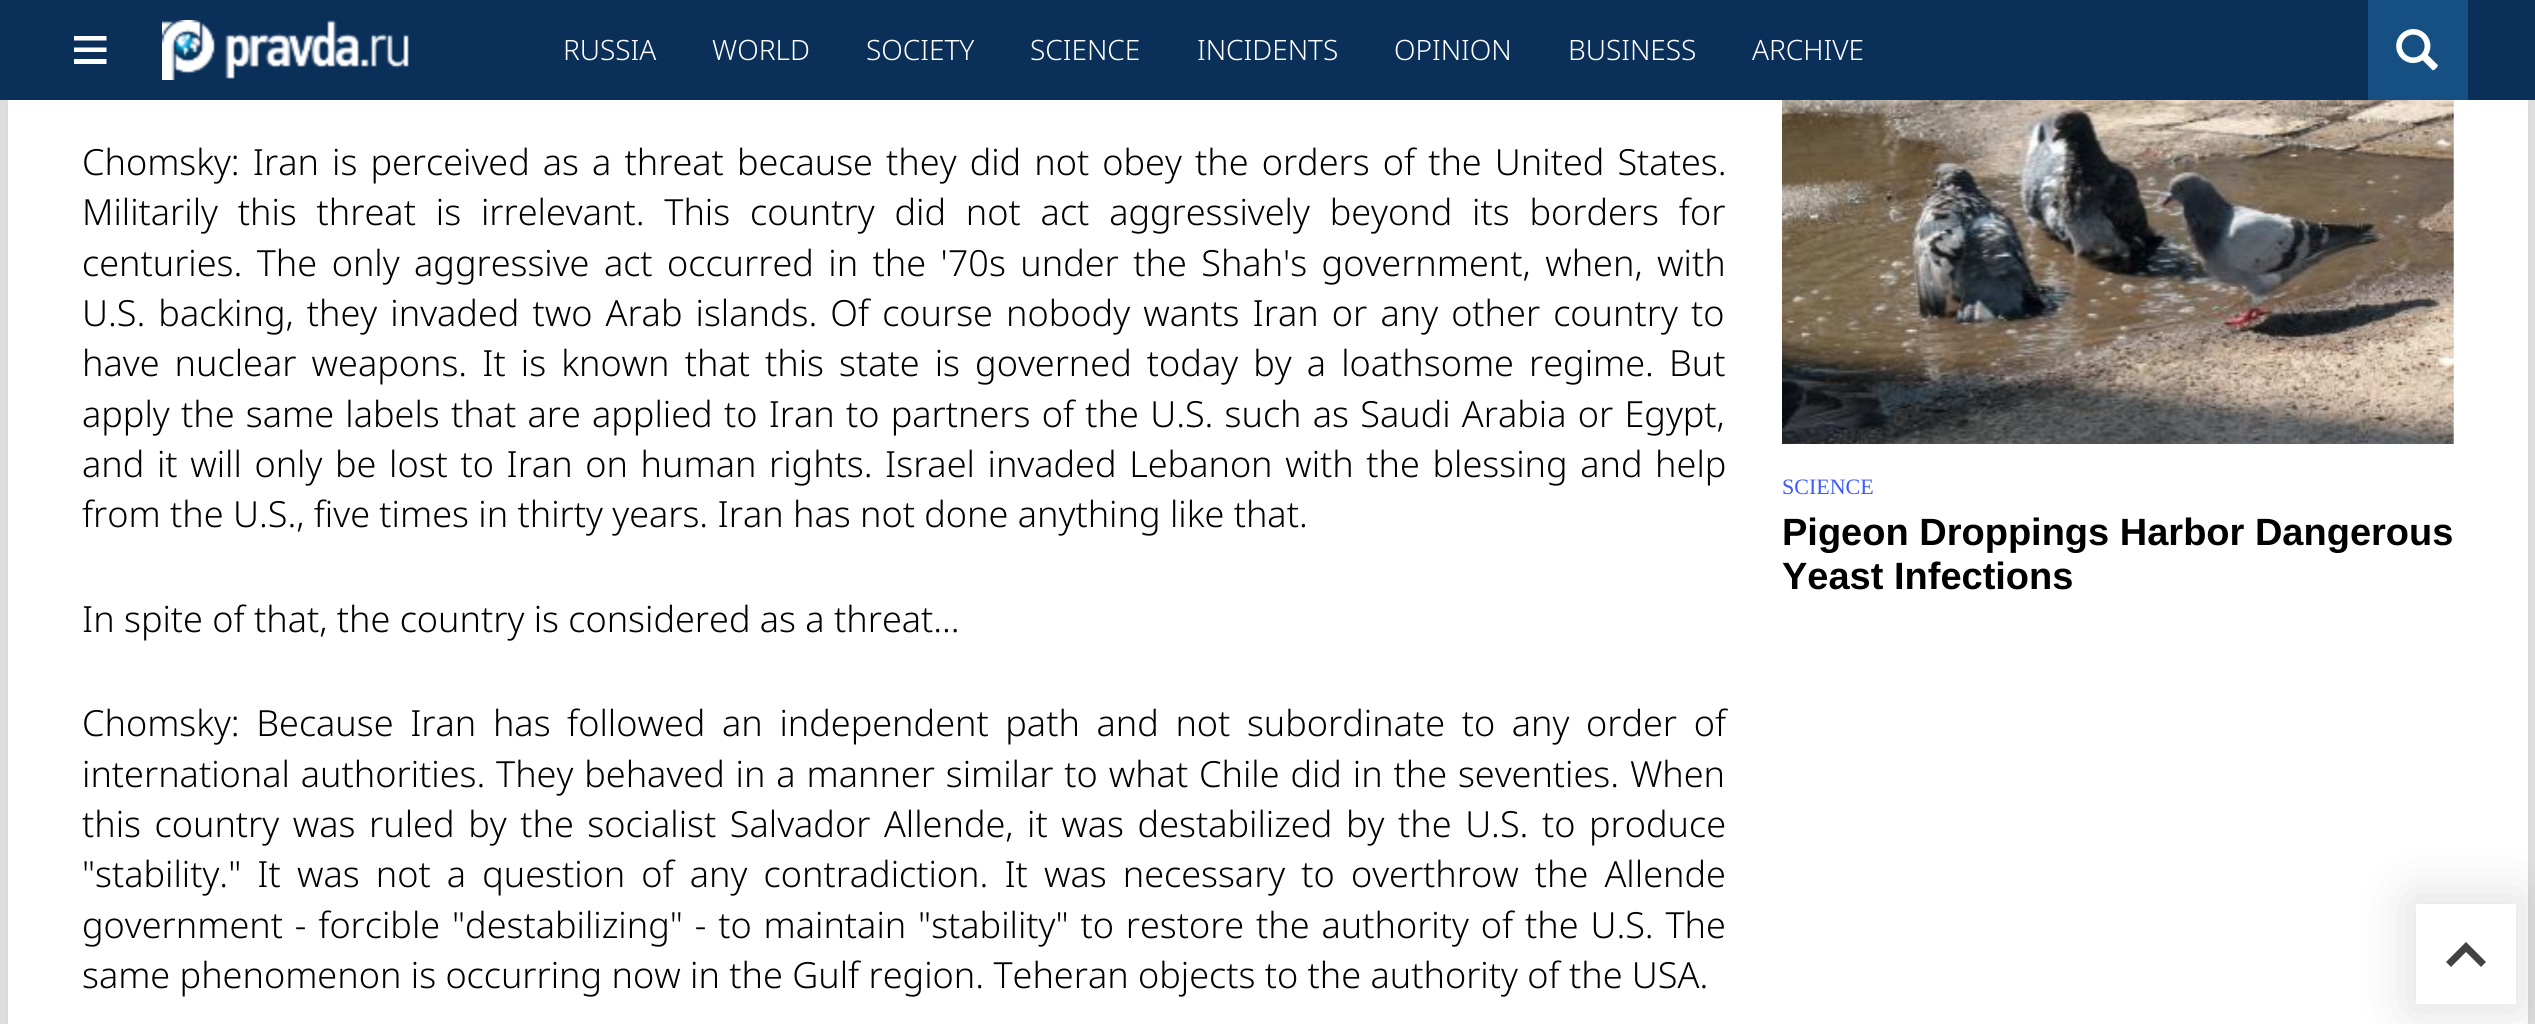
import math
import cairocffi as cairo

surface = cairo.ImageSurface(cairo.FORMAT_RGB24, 2535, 1024)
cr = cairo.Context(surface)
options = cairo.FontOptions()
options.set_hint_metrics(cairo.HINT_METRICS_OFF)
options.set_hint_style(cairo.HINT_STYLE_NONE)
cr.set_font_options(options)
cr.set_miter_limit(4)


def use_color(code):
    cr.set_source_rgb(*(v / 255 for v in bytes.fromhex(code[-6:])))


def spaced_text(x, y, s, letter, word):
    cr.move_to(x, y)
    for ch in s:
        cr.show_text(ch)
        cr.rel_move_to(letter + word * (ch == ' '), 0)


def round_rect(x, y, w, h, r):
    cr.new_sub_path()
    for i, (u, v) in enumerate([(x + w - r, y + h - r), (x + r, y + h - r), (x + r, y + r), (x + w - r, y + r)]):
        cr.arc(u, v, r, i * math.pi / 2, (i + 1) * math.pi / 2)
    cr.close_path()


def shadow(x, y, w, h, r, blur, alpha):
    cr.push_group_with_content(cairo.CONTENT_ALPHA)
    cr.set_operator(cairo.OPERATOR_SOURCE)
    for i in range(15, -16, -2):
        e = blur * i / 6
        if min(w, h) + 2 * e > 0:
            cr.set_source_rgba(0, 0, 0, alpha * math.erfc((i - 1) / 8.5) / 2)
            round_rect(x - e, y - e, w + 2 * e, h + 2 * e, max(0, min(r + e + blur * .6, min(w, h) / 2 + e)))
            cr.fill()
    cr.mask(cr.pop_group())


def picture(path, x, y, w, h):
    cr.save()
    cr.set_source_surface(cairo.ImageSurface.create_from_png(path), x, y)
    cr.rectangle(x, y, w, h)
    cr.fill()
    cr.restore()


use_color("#ededed")
cr.paint()
use_color("#000000")
shadow(2, -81, 2532, 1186, 0, 27, 0.13)
use_color("#ffffff")
cr.rectangle(8, 100, 2520, 924)
cr.fill()
use_color("#0a305a")
cr.rectangle(0, 0, 2535, 100)
cr.fill()
use_color("#ffffff")
cr.new_path()
cr.move_to(74, 36)
cr.line_to(106.5, 36)
cr.line_to(106.5, 40.5)
cr.line_to(74, 40.5)
cr.close_path()
cr.move_to(74, 47.5)
cr.line_to(106.5, 47.5)
cr.line_to(106.5, 52)
cr.line_to(74, 52)
cr.close_path()
cr.move_to(74, 59)
cr.line_to(106.5, 59)
cr.line_to(106.5, 64)
cr.line_to(74, 64)
cr.close_path()
cr.fill()
picture("img1.png", 162, 20, 247, 60)
cr.select_font_face("Noto Sans Light")
cr.set_font_size(28)
cr.move_to(563, 60)
cr.show_text("RUSSIA")
cr.move_to(712, 60)
cr.show_text("WORLD")
cr.move_to(866, 60)
cr.show_text("SOCIETY")
cr.move_to(1030, 60)
cr.show_text("SCIENCE")
cr.move_to(1197, 60)
cr.show_text("INCIDENTS")
cr.move_to(1394, 60)
cr.show_text("OPINION")
cr.move_to(1568, 60)
cr.show_text("BUSINESS")
cr.move_to(1752, 60)
cr.show_text("ARCHIVE")
use_color("#164f82")
cr.rectangle(2368, 0, 100, 100)
cr.fill()
picture("img2.png", 2396, 29, 42, 42)
cr.set_font_size(36)
use_color("#000000")
spaced_text(82, 175, "Chomsky: Iran is perceived as a threat because they did not obey the orders of the United States.", 0, 3.75)
spaced_text(82, 225, "Militarily this threat is irrelevant. This country did not act aggressively beyond its borders for", 0, 10.5)
spaced_text(82, 276, "centuries. The only aggressive act occurred in the '70s under the Shah's government, when, with", 0, 5.1)
spaced_text(82, 326, "U.S. backing, they invaded two Arab islands. Of course nobody wants Iran or any other country to", 0, 3.75)
spaced_text(82, 376, "have nuclear weapons. It is known that this state is governed today by a loathsome regime. But", 0, 5.75)
spaced_text(82, 427, "apply the same labels that are applied to Iran to partners of the U.S. such as Saudi Arabia or Egypt,", 0, 1.9)
spaced_text(82, 477, "and it will only be lost to Iran on human rights. Israel invaded Lebanon with the blessing and help", 0, 3.25)
cr.move_to(82, 527)
cr.show_text("from the U.S., five times in thirty years. Iran has not done anything like that.")
cr.move_to(82, 632)
cr.show_text("In spite of that, the country is considered as a threat...")
spaced_text(82, 736, "Chomsky: Because Iran has followed an independent path and not subordinate to any order of", 0, 7.25)
spaced_text(82, 787, "international authorities. They behaved in a manner similar to what Chile did in the seventies. When", 0, 1.5)
spaced_text(82, 837, "this country was ruled by the socialist Salvador Allende, it was destabilized by the U.S. to produce", 0, 4.25)
spaced_text(82, 887, "\"stability.\" It was not a question of any contradiction. It was necessary to overthrow the Allende", 0, 6.75)
spaced_text(82, 938, "government - forcible \"destabilizing\" - to maintain \"stability\" to restore the authority of the U.S. The", 0, 2.5)
cr.move_to(82, 988)
cr.show_text("same phenomenon is occurring now in the Gulf region. Teheran objects to the authority of the USA.")
picture("img3.png", 1782, 100, 672, 344)
cr.select_font_face("Liberation Serif")
cr.set_font_size(22)
use_color("#3d5afe")
cr.move_to(1782, 494)
cr.show_text("SCIENCE")
cr.select_font_face("Liberation Sans", cairo.FONT_SLANT_NORMAL, cairo.FONT_WEIGHT_BOLD)
cr.set_font_size(38)
use_color("#000000")
cr.move_to(1782, 545)
cr.show_text("Pigeon Droppings Harbor Dangerous")
cr.move_to(1782, 589)
cr.show_text("Yeast Infections")
cr.save()
cr.set_fill_rule(cairo.FILL_RULE_EVEN_ODD)
cr.new_path()
cr.move_to(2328, 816)
cr.line_to(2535, 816)
cr.line_to(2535, 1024)
cr.line_to(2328, 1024)
cr.close_path()
cr.move_to(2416, 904)
cr.line_to(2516, 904)
cr.line_to(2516, 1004)
cr.line_to(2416, 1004)
cr.close_path()
cr.clip()
use_color("#000000")
shadow(2410, 898, 112, 112, 0, 27, 0.13)
cr.restore()
use_color("#424242")
cr.new_path()
cr.move_to(2466, 942)
cr.line_to(2486, 962)
cr.line_to(2481, 967)
cr.line_to(2466, 952)
cr.line_to(2451, 967)
cr.line_to(2446, 962)
cr.close_path()
cr.fill()
surface.write_to_png("result.png")
